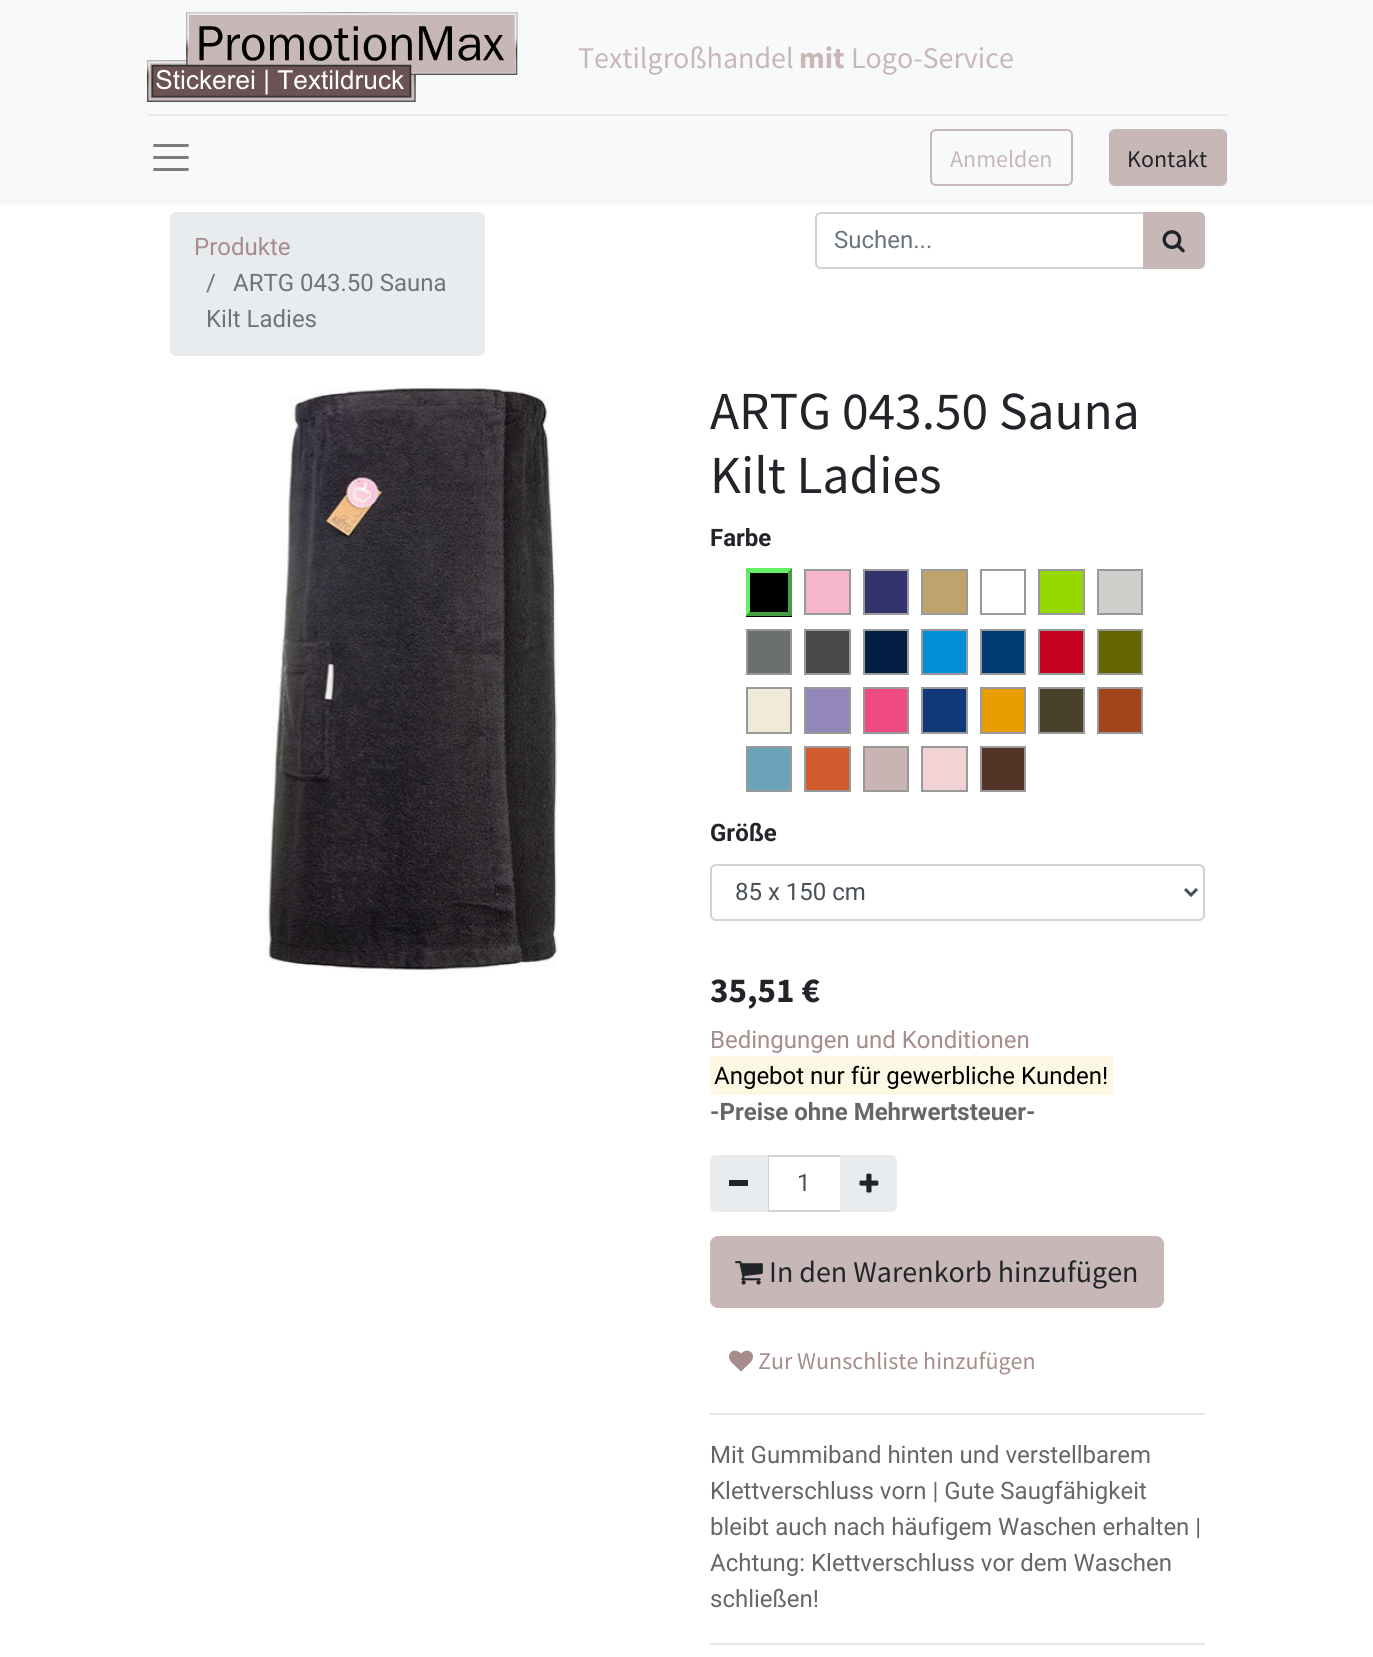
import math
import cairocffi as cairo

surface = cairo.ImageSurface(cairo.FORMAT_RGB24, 1373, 1657)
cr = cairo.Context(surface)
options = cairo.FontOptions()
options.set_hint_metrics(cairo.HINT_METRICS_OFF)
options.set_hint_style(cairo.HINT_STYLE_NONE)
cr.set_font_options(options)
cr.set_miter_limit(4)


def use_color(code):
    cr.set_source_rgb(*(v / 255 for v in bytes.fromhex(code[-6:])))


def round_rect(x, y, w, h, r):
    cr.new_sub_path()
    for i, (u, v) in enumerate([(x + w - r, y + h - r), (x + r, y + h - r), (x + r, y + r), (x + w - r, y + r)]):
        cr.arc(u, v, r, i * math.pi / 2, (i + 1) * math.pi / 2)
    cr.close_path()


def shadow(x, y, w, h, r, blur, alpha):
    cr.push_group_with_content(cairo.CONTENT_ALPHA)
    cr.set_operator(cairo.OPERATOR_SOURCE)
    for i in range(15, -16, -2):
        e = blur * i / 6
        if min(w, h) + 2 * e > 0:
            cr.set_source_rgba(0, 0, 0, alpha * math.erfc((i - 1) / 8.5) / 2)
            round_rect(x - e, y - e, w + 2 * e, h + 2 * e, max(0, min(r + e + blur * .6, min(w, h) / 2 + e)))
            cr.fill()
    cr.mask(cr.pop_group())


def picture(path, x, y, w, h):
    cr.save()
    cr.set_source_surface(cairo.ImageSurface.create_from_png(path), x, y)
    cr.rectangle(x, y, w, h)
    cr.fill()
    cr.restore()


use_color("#ffffff")
cr.paint()
use_color("#e9ecef")
round_rect(170, 212, 315, 144, 6)
cr.fill()
cr.new_path()
cr.move_to(821, 213)
cr.line_to(1144, 213)
cr.line_to(1144, 268)
cr.line_to(821, 268)
cr.curve_to(818, 268, 816, 266, 816, 263)
cr.line_to(816, 218)
cr.curve_to(816, 215, 818, 213, 821, 213)
cr.close_path()
use_color("#ced4da")
cr.stroke()
use_color("#c8b7b7")
cr.new_path()
cr.move_to(1144, 213)
cr.line_to(1199, 213)
cr.curve_to(1202, 213, 1204, 215, 1204, 218)
cr.line_to(1204, 263)
cr.curve_to(1204, 266, 1202, 268, 1199, 268)
cr.line_to(1144, 268)
cr.close_path()
cr.fill_preserve()
cr.stroke()
use_color("#000000")
shadow(0, 3, 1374, 200, 0, 3, 0.07)
use_color("#f8f9fa")
cr.rectangle(0, 0, 1373, 200)
cr.fill()
picture("img1.png", 147, 12, 371, 90)
cr.select_font_face("Source Sans Pro")
cr.set_font_size(30)
use_color("#c8b7b7")
cr.move_to(578, 68)
cr.show_text("Textilgroßhandel")
cr.select_font_face("Source Sans Pro", cairo.FONT_SLANT_NORMAL, cairo.FONT_WEIGHT_BOLD)
cr.move_to(799, 68)
cr.show_text("mit")
cr.select_font_face("Source Sans Pro")
cr.move_to(851, 68)
cr.show_text("Logo-Service")
use_color("#e9ecef")
cr.rectangle(147, 114, 1080, 2)
cr.fill()
cr.new_path()
cr.move_to(154.5, 145.5)
cr.line_to(187.5, 145.5)
cr.move_to(154.5, 157.5)
cr.line_to(187.5, 157.5)
cr.move_to(154.5, 169.5)
cr.line_to(187.5, 169.5)
use_color("#7c7d7d")
cr.set_line_width(3)
cr.set_line_cap(cairo.LINE_CAP_ROUND)
cr.stroke()
round_rect(931, 130, 141, 55, 5)
use_color("#c8b7b7")
cr.set_line_width(2)
cr.set_line_cap(cairo.LINE_CAP_BUTT)
cr.stroke()
cr.set_font_size(24)
cr.move_to(950, 167)
cr.show_text("Anmelden")
round_rect(1110, 130, 116, 55, 5)
cr.fill_preserve()
cr.stroke()
use_color("#212529")
cr.move_to(1127, 167)
cr.show_text("Kontakt")
cr.select_font_face("Roboto")
use_color("#a78c8c")
cr.move_to(194, 255)
cr.show_text("Produkte")
use_color("#6c757d")
cr.move_to(206, 291)
cr.show_text("/")
cr.move_to(233, 291)
cr.show_text("ARTG 043.50 Sauna")
cr.move_to(206, 327)
cr.show_text("Kilt Ladies")
cr.move_to(834, 248)
cr.show_text("Suchen...")
picture("img2.png", 1162, 230, 23, 23)
picture("img3.png", 264, 388, 294, 587)
cr.select_font_face("Source Sans Pro")
cr.set_font_size(53.5)
use_color("#212529")
cr.move_to(710, 429)
cr.show_text("ARTG 043.50 Sauna")
cr.move_to(710, 493)
cr.show_text("Kilt Ladies")
cr.select_font_face("Roboto", cairo.FONT_SLANT_NORMAL, cairo.FONT_WEIGHT_BOLD)
cr.set_font_size(24)
cr.move_to(710, 546)
cr.show_text("Farbe")
use_color("#000000")
cr.rectangle(746, 569, 46, 48)
cr.fill()
use_color("#66ee66")
cr.new_path()
cr.move_to(746, 568)
cr.line_to(792, 568)
cr.line_to(788, 573)
cr.line_to(750, 573)
cr.close_path()
cr.fill()
use_color("#449f44")
cr.new_path()
cr.move_to(792, 568)
cr.line_to(792, 616)
cr.line_to(788, 612)
cr.line_to(788, 573)
cr.close_path()
cr.fill()
cr.new_path()
cr.move_to(792, 616)
cr.line_to(746, 616)
cr.line_to(750, 612)
cr.line_to(788, 612)
cr.close_path()
cr.fill()
use_color("#66ee66")
cr.new_path()
cr.move_to(746, 616)
cr.line_to(746, 568)
cr.line_to(750, 573)
cr.line_to(750, 612)
cr.close_path()
cr.fill()
use_color("#f5b6cd")
cr.rectangle(805, 570, 45, 44)
cr.fill_preserve()
use_color("#999999")
cr.stroke()
use_color("#33346e")
cr.rectangle(864, 570, 44, 44)
cr.fill_preserve()
use_color("#999999")
cr.stroke()
use_color("#bfa36d")
cr.rectangle(922, 570, 45, 44)
cr.fill_preserve()
use_color("#999999")
cr.stroke()
cr.rectangle(981, 570, 44, 44)
cr.stroke()
use_color("#97d700")
cr.rectangle(1039, 570, 45, 44)
cr.fill_preserve()
use_color("#999999")
cr.stroke()
use_color("#d0cfcb")
cr.rectangle(1098, 570, 44, 44)
cr.fill_preserve()
use_color("#999999")
cr.stroke()
use_color("#6c6f70")
cr.rectangle(747, 630, 44, 44)
cr.fill_preserve()
use_color("#999999")
cr.stroke()
use_color("#4a4a4b")
cr.rectangle(805, 630, 45, 44)
cr.fill_preserve()
use_color("#999999")
cr.stroke()
use_color("#021e42")
cr.rectangle(864, 630, 44, 44)
cr.fill_preserve()
use_color("#999999")
cr.stroke()
use_color("#008ed6")
cr.rectangle(922, 630, 45, 44)
cr.fill_preserve()
use_color("#999999")
cr.stroke()
use_color("#003a70")
cr.rectangle(981, 630, 44, 44)
cr.fill_preserve()
use_color("#999999")
cr.stroke()
use_color("#c3031f")
cr.rectangle(1039, 630, 45, 44)
cr.fill_preserve()
use_color("#999999")
cr.stroke()
use_color("#666600")
cr.rectangle(1098, 630, 44, 44)
cr.fill_preserve()
use_color("#999999")
cr.stroke()
use_color("#efebd8")
cr.rectangle(747, 688, 44, 45)
cr.fill_preserve()
use_color("#999999")
cr.stroke()
use_color("#9287b8")
cr.rectangle(805, 688, 45, 45)
cr.fill_preserve()
use_color("#999999")
cr.stroke()
use_color("#ef4a81")
cr.rectangle(864, 688, 44, 45)
cr.fill_preserve()
use_color("#999999")
cr.stroke()
use_color("#113879")
cr.rectangle(922, 688, 45, 45)
cr.fill_preserve()
use_color("#999999")
cr.stroke()
use_color("#e89e00")
cr.rectangle(981, 688, 44, 45)
cr.fill_preserve()
use_color("#999999")
cr.stroke()
use_color("#4a412a")
cr.rectangle(1039, 688, 45, 45)
cr.fill_preserve()
use_color("#999999")
cr.stroke()
use_color("#a2451a")
cr.rectangle(1098, 688, 44, 45)
cr.fill_preserve()
use_color("#999999")
cr.stroke()
use_color("#6ba4b8")
cr.rectangle(747, 747, 44, 44)
cr.fill_preserve()
use_color("#999999")
cr.stroke()
use_color("#d25b2e")
cr.rectangle(805, 747, 45, 44)
cr.fill_preserve()
use_color("#999999")
cr.stroke()
use_color("#c9b4b3")
cr.rectangle(864, 747, 44, 44)
cr.fill_preserve()
use_color("#999999")
cr.stroke()
use_color("#f1d3d5")
cr.rectangle(922, 747, 45, 44)
cr.fill_preserve()
use_color("#999999")
cr.stroke()
use_color("#533528")
cr.rectangle(981, 747, 44, 44)
cr.fill_preserve()
use_color("#999999")
cr.stroke()
use_color("#212529")
cr.move_to(710, 841)
cr.show_text("Größe")
round_rect(711, 865, 493, 55, 5)
use_color("#ced4da")
cr.stroke()
cr.new_path()
cr.move_to(1185, 889)
cr.line_to(1191, 895)
cr.line_to(1197, 889)
use_color("#495057")
cr.set_line_width(3)
cr.stroke()
cr.select_font_face("Roboto")
cr.move_to(735, 900)
cr.show_text("85 x 150 cm")
cr.select_font_face("Source Sans Pro", cairo.FONT_SLANT_NORMAL, cairo.FONT_WEIGHT_BOLD)
cr.set_font_size(35)
use_color("#212529")
cr.move_to(710, 1002)
cr.show_text("35,51 €")
cr.select_font_face("Roboto")
cr.set_font_size(24)
use_color("#a78c8c")
cr.move_to(710, 1048)
cr.show_text("Bedingungen und Konditionen")
use_color("#fcf8e3")
cr.rectangle(710, 1056, 403, 39)
cr.fill()
use_color("#000000")
cr.move_to(714, 1084)
cr.show_text("Angebot nur für gewerbliche Kunden!")
cr.select_font_face("Roboto", cairo.FONT_SLANT_NORMAL, cairo.FONT_WEIGHT_BOLD)
use_color("#646669")
cr.move_to(710, 1120)
cr.show_text("-Preise ohne Mehrwertsteuer-")
cr.rectangle(768, 1156, 73, 55)
use_color("#ced4da")
cr.set_line_width(2)
cr.stroke()
use_color("#e9ecef")
cr.new_path()
cr.move_to(716, 1156)
cr.line_to(767, 1156)
cr.line_to(767, 1211)
cr.line_to(716, 1211)
cr.curve_to(713, 1211, 711, 1209, 711, 1206)
cr.line_to(711, 1161)
cr.curve_to(711, 1158, 713, 1156, 716, 1156)
cr.close_path()
cr.fill_preserve()
cr.stroke()
use_color("#212529")
cr.rectangle(729, 1180, 19, 6)
cr.fill()
cr.select_font_face("Roboto")
use_color("#495057")
cr.move_to(797, 1191)
cr.show_text("1")
use_color("#e9ecef")
cr.new_path()
cr.move_to(841, 1156)
cr.line_to(891, 1156)
cr.curve_to(894, 1156, 896, 1158, 896, 1161)
cr.line_to(896, 1206)
cr.curve_to(896, 1209, 894, 1211, 891, 1211)
cr.line_to(841, 1211)
cr.close_path()
cr.fill_preserve()
cr.stroke()
picture("img4.png", 859, 1173, 20, 20)
use_color("#c8b7b7")
round_rect(711, 1237, 452, 70, 7)
cr.fill_preserve()
cr.stroke()
picture("img5.png", 735, 1261, 28, 24)
cr.select_font_face("Source Sans Pro")
cr.set_font_size(30)
use_color("#212529")
cr.move_to(769, 1282)
cr.show_text("In den Warenkorb hinzufügen")
picture("img6.png", 729, 1350, 24, 22)
cr.set_font_size(24)
use_color("#a78c8c")
cr.move_to(758, 1369)
cr.show_text("Zur Wunschliste hinzufügen")
use_color("#e6e6e6")
cr.rectangle(710, 1413, 495, 2)
cr.fill()
cr.select_font_face("Roboto")
use_color("#646669")
cr.move_to(710, 1463)
cr.show_text("Mit Gummiband hinten und verstellbarem")
cr.move_to(710, 1499)
cr.show_text("Klettverschluss vorn | Gute Saugfähigkeit")
cr.move_to(710, 1535)
cr.show_text("bleibt auch nach häufigem Waschen erhalten |")
cr.move_to(710, 1571)
cr.show_text("Achtung: Klettverschluss vor dem Waschen")
cr.move_to(710, 1607)
cr.show_text("schließen!")
use_color("#e6e6e6")
cr.rectangle(710, 1643, 495, 2)
cr.fill()
surface.write_to_png("result.png")
